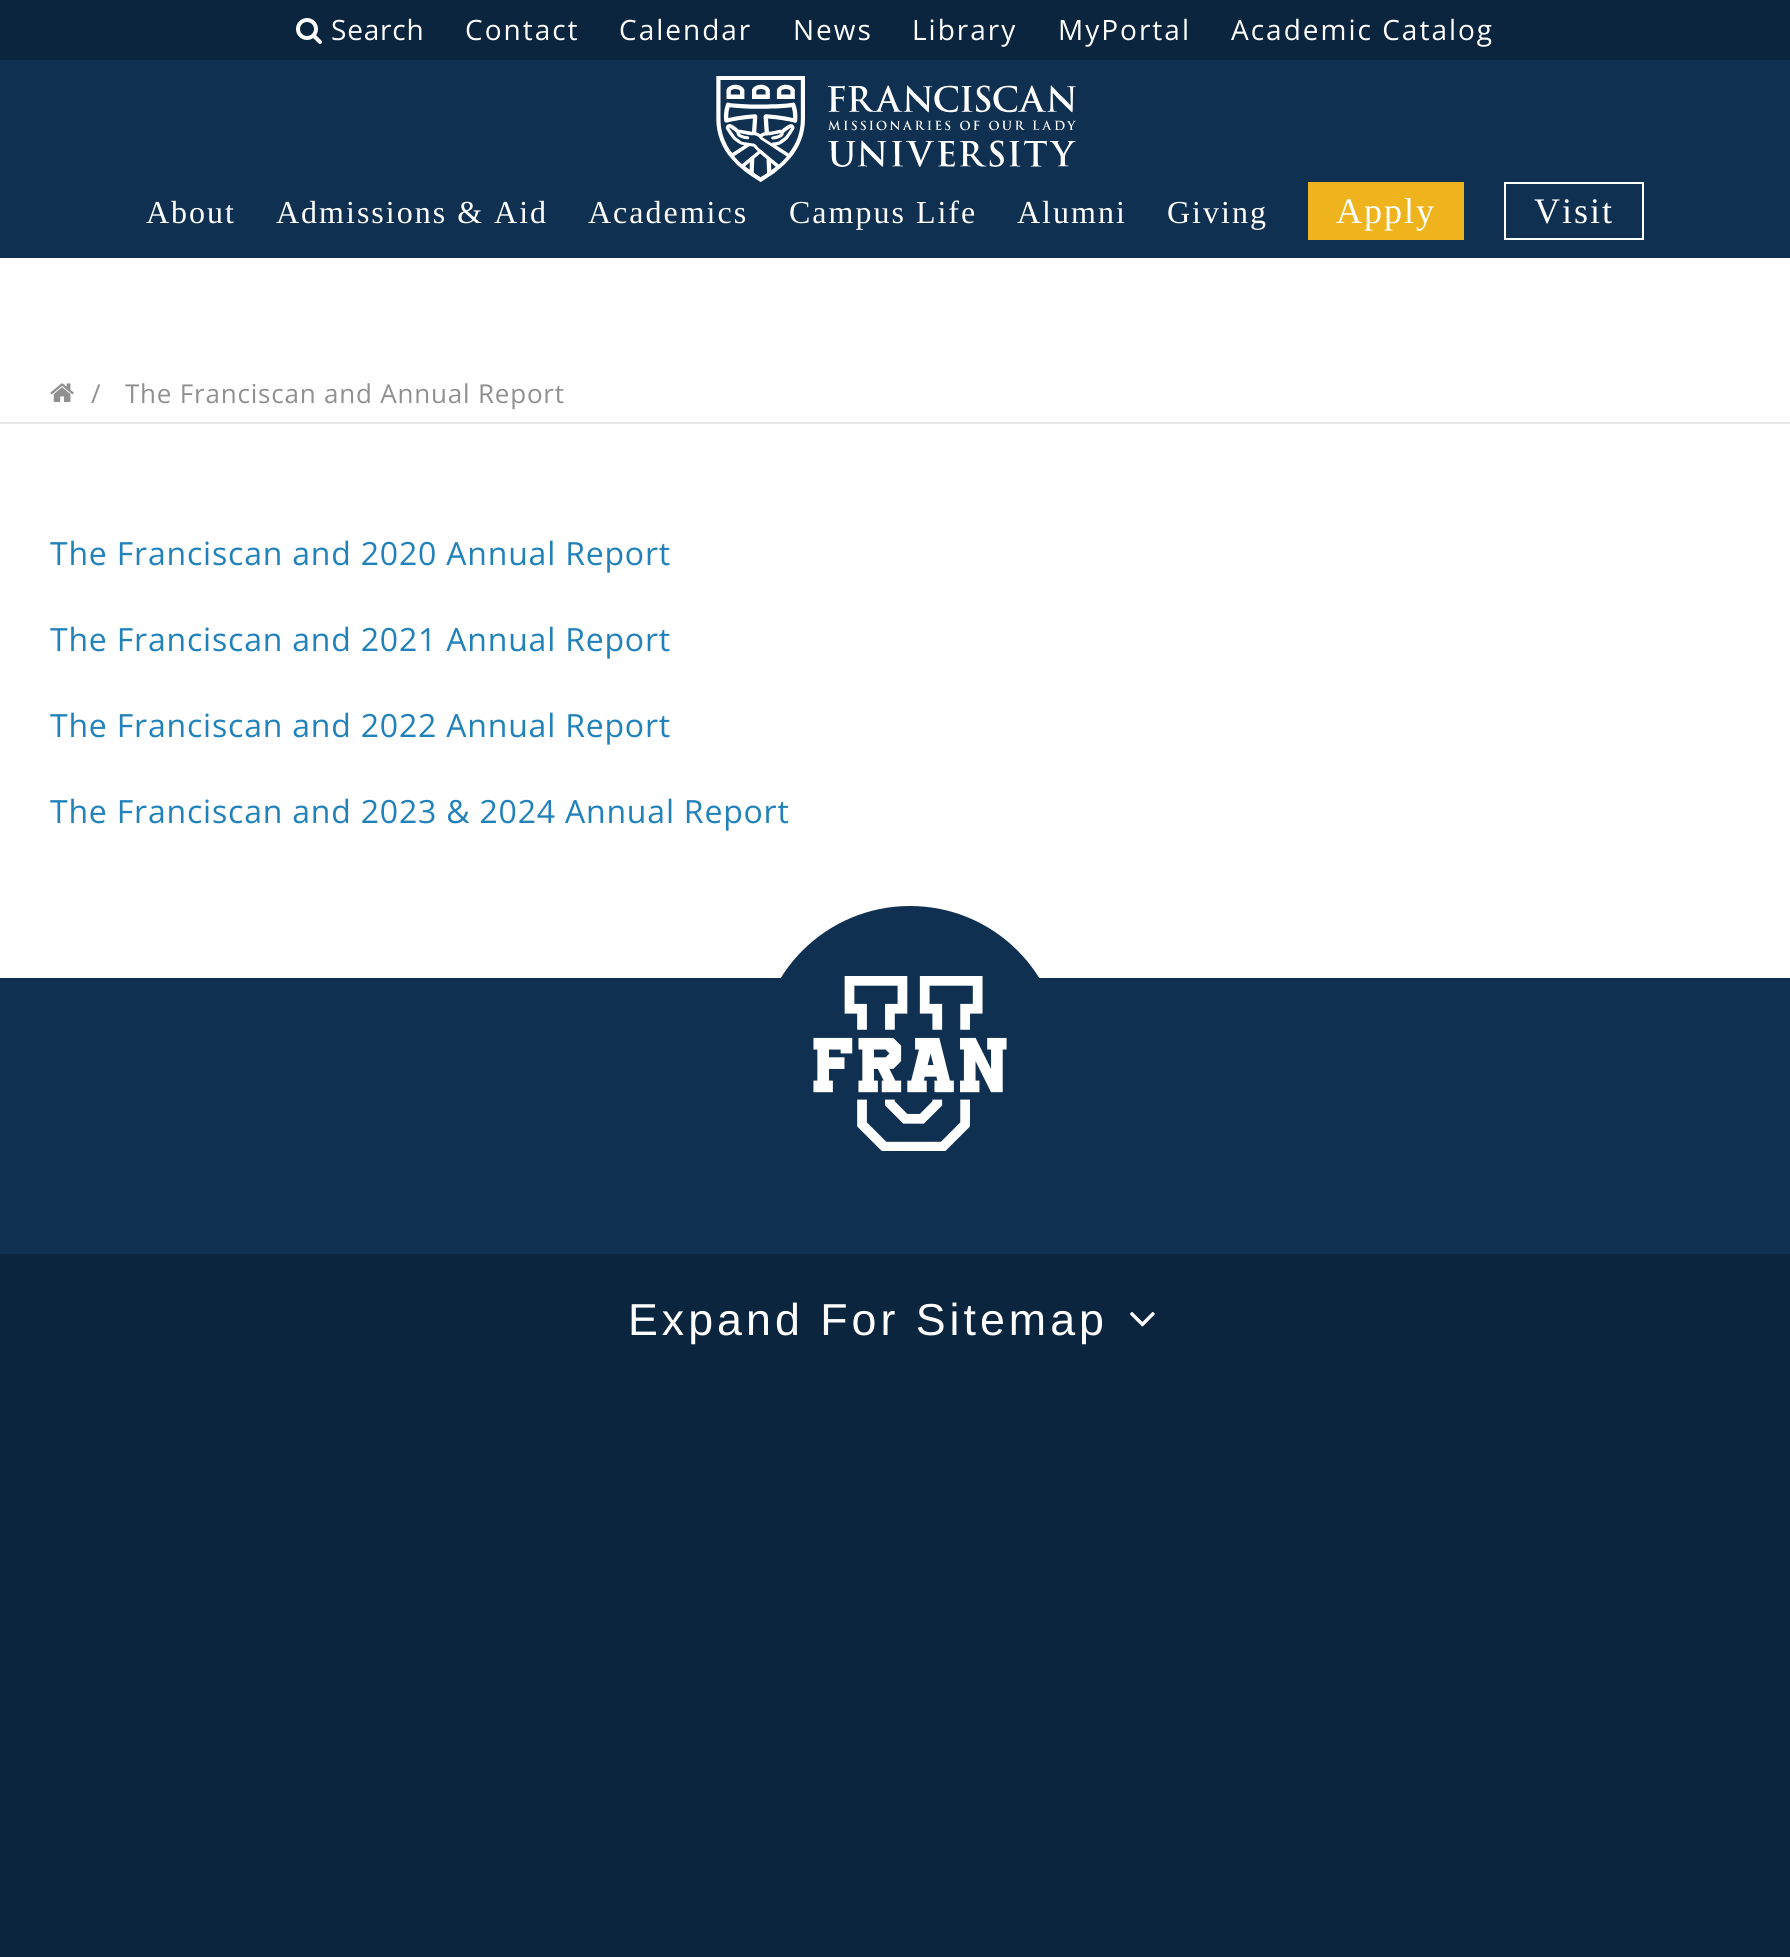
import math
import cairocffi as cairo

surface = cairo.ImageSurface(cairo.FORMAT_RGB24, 1790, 1957)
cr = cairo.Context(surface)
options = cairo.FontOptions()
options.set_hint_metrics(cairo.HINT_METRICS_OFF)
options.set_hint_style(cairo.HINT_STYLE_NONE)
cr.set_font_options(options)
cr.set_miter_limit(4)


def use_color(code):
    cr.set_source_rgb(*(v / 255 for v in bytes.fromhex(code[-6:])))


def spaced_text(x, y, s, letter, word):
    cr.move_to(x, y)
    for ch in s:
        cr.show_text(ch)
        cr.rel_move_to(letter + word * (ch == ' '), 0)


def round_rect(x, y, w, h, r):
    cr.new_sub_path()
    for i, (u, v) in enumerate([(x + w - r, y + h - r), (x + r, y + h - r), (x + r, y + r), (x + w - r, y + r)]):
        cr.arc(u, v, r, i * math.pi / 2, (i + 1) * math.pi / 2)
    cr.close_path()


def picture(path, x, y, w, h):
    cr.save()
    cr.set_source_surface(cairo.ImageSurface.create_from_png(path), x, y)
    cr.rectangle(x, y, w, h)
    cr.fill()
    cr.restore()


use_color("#0b253f")
cr.paint()
picture("img1.png", 296, 18, 26, 26)
cr.select_font_face("Open Sans")
cr.set_font_size(28)
use_color("#ffffff")
spaced_text(331, 40, "Search", 0.8, 0)
spaced_text(465, 40, "Contact", 2, 0)
spaced_text(619, 40, "Calendar", 2, 0)
spaced_text(793, 40, "News", 2, 0)
spaced_text(912, 40, "Library", 2, 0)
spaced_text(1058, 40, "MyPortal", 2, 0)
spaced_text(1231, 40, "Academic Catalog", 2, 0)
use_color("#0f3051")
cr.rectangle(0, 60, 1790, 198)
cr.fill()
picture("img2.png", 716, 76, 360, 106)
cr.select_font_face("Liberation Serif")
cr.set_font_size(32)
use_color("#ffffff")
spaced_text(146, 223, "About", 2, 0)
spaced_text(276, 223, "Admissions & Aid", 2, 0)
spaced_text(588, 223, "Academics", 2, 0)
spaced_text(789, 223, "Campus Life", 2, 0)
spaced_text(1017, 223, "Alumni", 2, 0)
spaced_text(1167, 223, "Giving", 2, 0)
use_color("#efb41d")
cr.rectangle(1308, 182, 156, 58)
cr.fill()
cr.set_font_size(36)
use_color("#ffffff")
spaced_text(1336, 223, "Apply", 2, 0)
cr.rectangle(1505, 183, 138, 56)
cr.stroke()
spaced_text(1534, 223, "Visit", 2, 0)
cr.rectangle(0, 258, 1790, 720)
cr.fill()
use_color("#e6e7e8")
cr.rectangle(0, 422, 1790, 2)
cr.fill()
picture("img3.png", 50, 383, 24, 19)
cr.select_font_face("Open Sans")
cr.set_font_size(26)
use_color("#909090")
spaced_text(91, 403, "/", 0.8, 0)
spaced_text(125, 403, "The Franciscan and Annual Report", 0.8, 0)
cr.set_font_size(32)
use_color("#2081bb")
spaced_text(50, 565, "The Franciscan and 2020 Annual Report", 0.8, 0)
spaced_text(50, 651, "The Franciscan and 2021 Annual Report", 0.8, 0)
spaced_text(50, 737, "The Franciscan and 2022 Annual Report", 0.8, 0)
spaced_text(50, 823, "The Franciscan and 2023 & 2024 Annual Report", 0.8, 0)
use_color("#0f3051")
cr.rectangle(0, 978, 1790, 276)
cr.fill()
round_rect(758, 906, 304, 306, 152)
cr.fill()
picture("img4.png", 813, 976, 194, 175)
cr.select_font_face("Liberation Sans")
cr.set_font_size(44.75)
use_color("#ffffff")
spaced_text(628, 1335, "Expand For Sitemap", 4, 0)
picture("img5.png", 1130, 1312, 25, 15)
surface.write_to_png("result.png")
